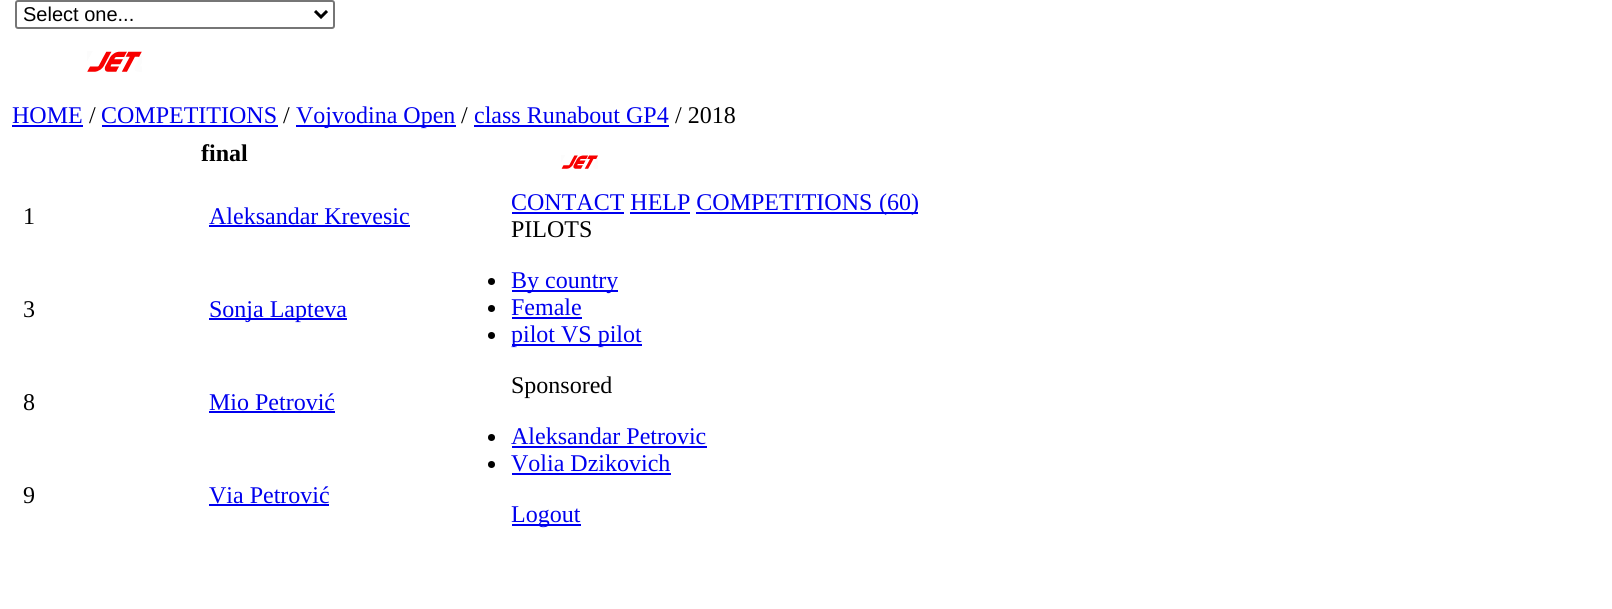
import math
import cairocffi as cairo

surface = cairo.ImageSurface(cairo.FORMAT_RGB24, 1612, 609)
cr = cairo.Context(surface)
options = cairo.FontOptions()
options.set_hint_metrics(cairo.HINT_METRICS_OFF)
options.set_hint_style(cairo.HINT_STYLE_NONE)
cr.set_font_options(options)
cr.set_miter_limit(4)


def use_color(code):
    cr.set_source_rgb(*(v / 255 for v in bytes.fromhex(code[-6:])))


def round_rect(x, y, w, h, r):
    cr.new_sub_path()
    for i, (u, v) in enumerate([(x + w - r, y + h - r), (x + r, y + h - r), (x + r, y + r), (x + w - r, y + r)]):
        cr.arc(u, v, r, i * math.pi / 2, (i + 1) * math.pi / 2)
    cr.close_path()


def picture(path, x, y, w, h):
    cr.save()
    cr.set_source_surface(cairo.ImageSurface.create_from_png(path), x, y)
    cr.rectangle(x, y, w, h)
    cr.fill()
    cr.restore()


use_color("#ffffff")
cr.paint()
round_rect(16, 1, 318, 27, 2)
use_color("#767676")
cr.stroke()
cr.new_path()
cr.move_to(315, 11)
cr.line_to(321, 17)
cr.line_to(327, 11)
use_color("#000000")
cr.set_line_width(3)
cr.stroke()
cr.select_font_face("Liberation Sans")
cr.set_font_size(20)
cr.move_to(23, 21)
cr.show_text("Select one...")
picture("img1.png", 87, 51, 55, 21)
cr.select_font_face("Liberation Serif")
cr.set_font_size(24)
use_color("#0000ee")
cr.move_to(12, 123)
cr.show_text("HOME")
cr.rectangle(12, 125, 71, 2)
cr.fill()
use_color("#000000")
cr.move_to(89, 123)
cr.show_text("/")
use_color("#0000ee")
cr.move_to(101, 123)
cr.show_text("COMPETITIONS")
cr.rectangle(102, 125, 176, 2)
cr.fill()
use_color("#000000")
cr.move_to(283, 123)
cr.show_text("/")
use_color("#0000ee")
cr.rectangle(296, 125, 160, 2)
cr.fill()
cr.move_to(296, 123)
cr.show_text("Vojvodina Open")
use_color("#000000")
cr.move_to(461, 123)
cr.show_text("/")
use_color("#0000ee")
cr.move_to(474, 123)
cr.show_text("class Runabout GP4")
cr.rectangle(474, 125, 195, 2)
cr.fill()
use_color("#000000")
cr.move_to(675, 123)
cr.show_text("/ 2018")
cr.select_font_face("Liberation Serif", cairo.FONT_SLANT_NORMAL, cairo.FONT_WEIGHT_BOLD)
cr.move_to(201, 161)
cr.show_text("final")
cr.select_font_face("Liberation Serif")
cr.move_to(23, 224)
cr.show_text("1")
use_color("#0000ee")
cr.move_to(209, 224)
cr.show_text("Aleksandar Krevesic")
cr.rectangle(209, 225, 201, 2)
cr.fill()
use_color("#000000")
cr.move_to(23, 317)
cr.show_text("3")
use_color("#0000ee")
cr.rectangle(209, 318, 138, 2)
cr.fill()
cr.move_to(209, 317)
cr.show_text("Sonja Lapteva")
use_color("#000000")
cr.move_to(23, 410)
cr.show_text("8")
use_color("#0000ee")
cr.move_to(209, 410)
cr.show_text("Mio Petrović")
cr.rectangle(209, 411, 126, 2)
cr.fill()
use_color("#000000")
cr.move_to(23, 503)
cr.show_text("9")
use_color("#0000ee")
cr.move_to(209, 503)
cr.show_text("Via Petrović")
cr.rectangle(209, 504, 120, 2)
cr.fill()
picture("img2.png", 561, 155, 37, 14)
cr.move_to(511, 210)
cr.show_text("CONTACT HELP COMPETITIONS")
cr.rectangle(512, 212, 112, 2)
cr.fill()
cr.rectangle(696, 212, 222, 2)
cr.fill()
cr.move_to(879, 210)
cr.show_text("(60)")
cr.rectangle(630, 212, 60, 2)
cr.fill()
use_color("#000000")
cr.move_to(511, 237)
cr.show_text("PILOTS")
cr.new_path()
cr.arc(491.5, 281.5, 3.5, 0, 2 * math.pi)
cr.fill()
use_color("#0000ee")
cr.rectangle(512, 290, 106, 2)
cr.fill()
cr.move_to(511, 288)
cr.show_text("By country")
use_color("#000000")
cr.new_path()
cr.arc(491.5, 308.5, 3.5, 0, 2 * math.pi)
cr.fill()
use_color("#0000ee")
cr.move_to(511, 315)
cr.show_text("Female")
cr.rectangle(512, 317, 70, 2)
cr.fill()
use_color("#000000")
cr.arc(491.5, 335.5, 3.5, 0, 2 * math.pi)
cr.fill()
use_color("#0000ee")
cr.rectangle(512, 344, 130, 2)
cr.fill()
cr.move_to(511, 342)
cr.show_text("pilot VS pilot")
use_color("#000000")
cr.move_to(511, 393)
cr.show_text("Sponsored")
cr.new_path()
cr.arc(491.5, 437.5, 3.5, 0, 2 * math.pi)
cr.fill()
use_color("#0000ee")
cr.move_to(511, 444)
cr.show_text("Aleksandar Petrovic")
cr.rectangle(512, 446, 195, 2)
cr.fill()
use_color("#000000")
cr.arc(491.5, 464.5, 3.5, 0, 2 * math.pi)
cr.fill()
use_color("#0000ee")
cr.move_to(511, 471)
cr.show_text("Volia Dzikovich")
cr.rectangle(512, 473, 159, 2)
cr.fill()
cr.rectangle(512, 524, 69, 2)
cr.fill()
cr.move_to(511, 522)
cr.show_text("Logout")
surface.write_to_png("result.png")
